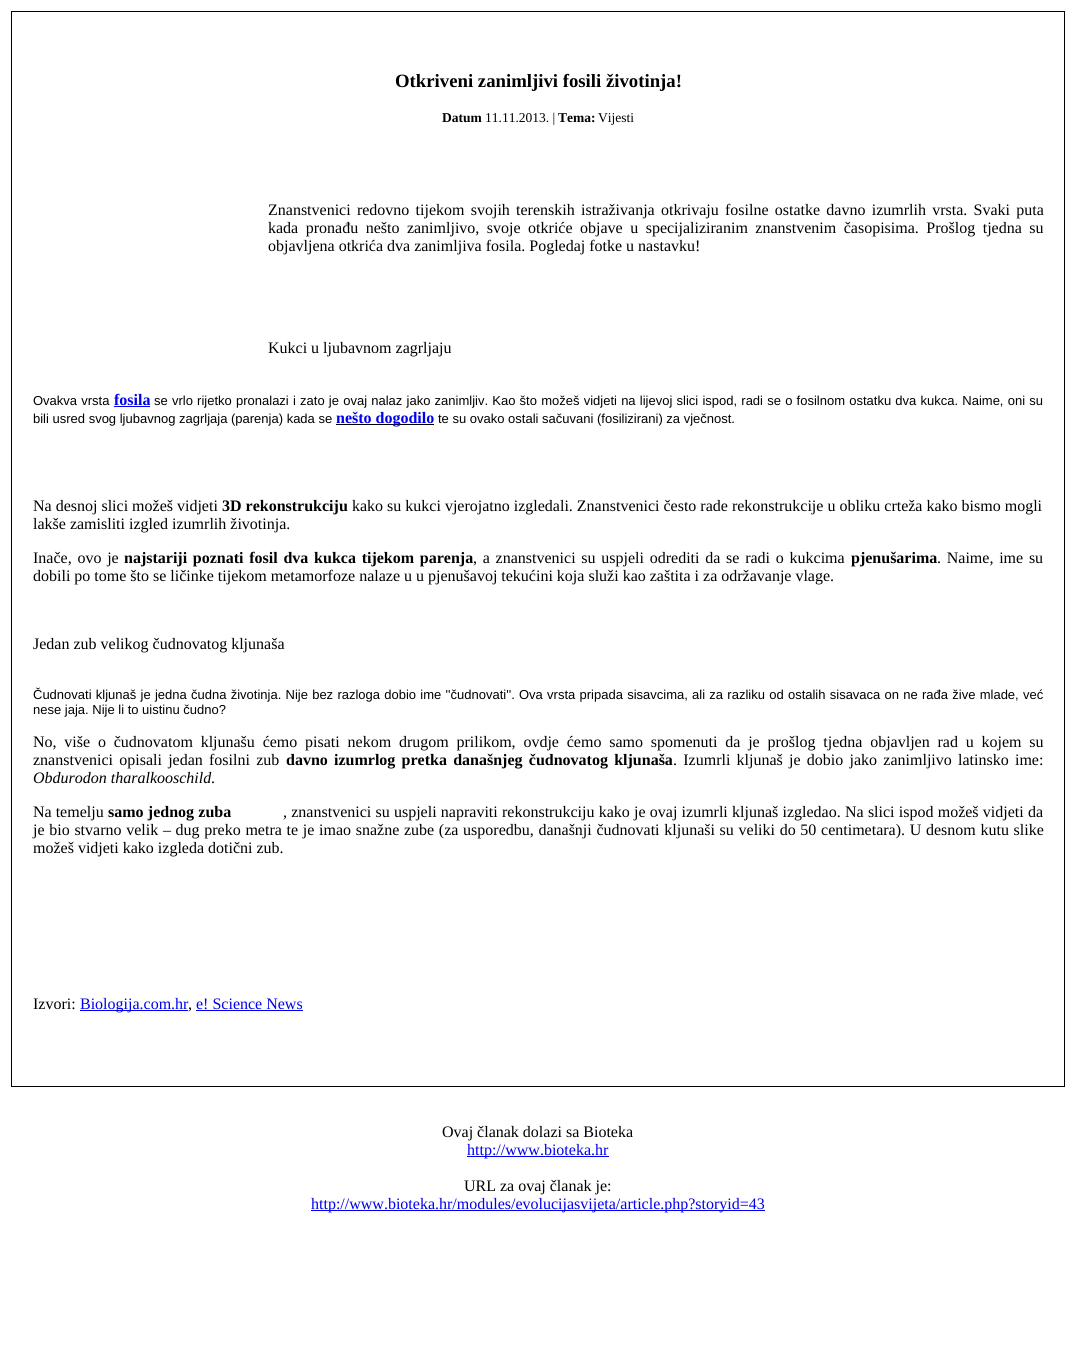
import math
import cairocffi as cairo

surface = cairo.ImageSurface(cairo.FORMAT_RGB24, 1076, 1363)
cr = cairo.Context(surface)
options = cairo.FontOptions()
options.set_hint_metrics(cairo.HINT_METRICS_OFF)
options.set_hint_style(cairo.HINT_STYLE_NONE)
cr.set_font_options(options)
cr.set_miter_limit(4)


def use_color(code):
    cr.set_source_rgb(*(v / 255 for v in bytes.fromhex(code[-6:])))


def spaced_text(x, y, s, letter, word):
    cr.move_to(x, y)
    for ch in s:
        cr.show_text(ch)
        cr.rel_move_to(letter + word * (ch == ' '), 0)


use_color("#ffffff")
cr.paint()
use_color("#000000")
cr.rectangle(11, 11, 1054, 1076)
cr.fill()
use_color("#ffffff")
cr.rectangle(12, 12, 1052, 1074)
cr.fill()
cr.select_font_face("Liberation Serif", cairo.FONT_SLANT_NORMAL, cairo.FONT_WEIGHT_BOLD)
cr.set_font_size(18.75)
use_color("#000000")
cr.move_to(395, 87)
cr.show_text("Otkriveni zanimljivi fosili životinja!")
cr.set_font_size(13.5)
cr.move_to(442, 122)
cr.show_text("Datum")
cr.select_font_face("Liberation Serif")
cr.move_to(485, 122)
cr.show_text("11.11.2013. |")
cr.select_font_face("Liberation Serif", cairo.FONT_SLANT_NORMAL, cairo.FONT_WEIGHT_BOLD)
cr.move_to(558, 122)
cr.show_text("Tema:")
cr.select_font_face("Liberation Serif")
cr.move_to(598, 122)
cr.show_text("Vijesti")
cr.set_font_size(16)
spaced_text(268, 215, "Znanstvenici redovno tijekom svojih terenskih istraživanja otkrivaju fosilne ostatke davno izumrlih vrsta. Svaki puta", 0, 2.25)
spaced_text(268, 233, "kada pronađu nešto zanimljivo, svoje otkriće objave u specijaliziranim znanstvenim časopisima. Prošlog tjedna su", 0, 3.5)
cr.move_to(268, 251)
cr.show_text("objavljena otkrića dva zanimljiva fosila. Pogledaj fotke u nastavku!")
cr.move_to(268, 353)
cr.show_text("Kukci u ljubavnom zagrljaju")
cr.select_font_face("Liberation Sans")
cr.set_font_size(13)
spaced_text(33, 405, "Ovakva vrsta", 0, 0.6)
cr.select_font_face("Liberation Serif", cairo.FONT_SLANT_NORMAL, cairo.FONT_WEIGHT_BOLD)
cr.set_font_size(16)
use_color("#0000ee")
cr.move_to(114, 405)
cr.show_text("fosila")
cr.rectangle(114, 406, 36, 1)
cr.fill()
cr.select_font_face("Liberation Sans")
cr.set_font_size(13)
use_color("#000000")
spaced_text(154, 405, "se vrlo rijetko pronalazi i zato je ovaj nalaz jako zanimljiv. Kao što možeš vidjeti na lijevoj slici ispod, radi se o fosilnom ostatku dva kukca. Naime, oni su", 0, 0.6)
cr.move_to(33, 423)
cr.show_text("bili usred svog ljubavnog zagrljaja (parenja) kada se")
cr.rectangle(336, 424, 98, 1)
cr.fill()
cr.select_font_face("Liberation Serif", cairo.FONT_SLANT_NORMAL, cairo.FONT_WEIGHT_BOLD)
cr.set_font_size(16)
use_color("#0000ee")
cr.move_to(336, 423)
cr.show_text("nešto dogodilo")
cr.select_font_face("Liberation Sans")
cr.set_font_size(13)
use_color("#000000")
cr.move_to(438, 423)
cr.show_text("te su ovako ostali sačuvani (fosilizirani) za vječnost.")
cr.select_font_face("Liberation Serif")
cr.set_font_size(16)
cr.move_to(33, 511)
cr.show_text("Na desnoj slici možeš vidjeti")
cr.select_font_face("Liberation Serif", cairo.FONT_SLANT_NORMAL, cairo.FONT_WEIGHT_BOLD)
cr.move_to(222, 511)
cr.show_text("3D rekonstrukciju")
cr.select_font_face("Liberation Serif")
cr.move_to(352, 511)
cr.show_text("kako su kukci vjerojatno izgledali. Znanstvenici često rade rekonstrukcije u obliku crteža kako bismo mogli")
cr.move_to(33, 529)
cr.show_text("lakše zamisliti izgled izumrlih životinja.")
spaced_text(33, 563, "Inače, ovo je", 0, 1.75)
cr.select_font_face("Liberation Serif", cairo.FONT_SLANT_NORMAL, cairo.FONT_WEIGHT_BOLD)
spaced_text(124, 563, "najstariji poznati fosil dva kukca tijekom parenja", 0, 1.75)
cr.select_font_face("Liberation Serif")
spaced_text(473, 563, ", a znanstvenici su uspjeli odrediti da se radi o kukcima", 0, 1.75)
cr.select_font_face("Liberation Serif", cairo.FONT_SLANT_NORMAL, cairo.FONT_WEIGHT_BOLD)
cr.move_to(851, 563)
cr.show_text("pjenušarima")
cr.select_font_face("Liberation Serif")
spaced_text(937, 563, ". Naime, ime su", 0, 1.75)
cr.move_to(33, 581)
cr.show_text("dobili po tome što se ličinke tijekom metamorfoze nalaze u u pjenušavoj tekućini koja služi kao zaštita i za održavanje vlage.")
cr.move_to(33, 649)
cr.show_text("Jedan zub velikog čudnovatog kljunaša")
cr.select_font_face("Liberation Sans")
cr.set_font_size(13)
spaced_text(33, 699, "Čudnovati kljunaš je jedna čudna životinja. Nije bez razloga dobio ime ''čudnovati''. Ova vrsta pripada sisavcima, ali za razliku od ostalih sisavaca on ne rađa žive mlade, već", 0, 0.65)
cr.move_to(33, 714)
cr.show_text("nese jaja. Nije li to uistinu čudno?")
cr.select_font_face("Liberation Serif")
cr.set_font_size(16)
spaced_text(33, 747, "No, više o čudnovatom kljunašu ćemo pisati nekom drugom prilikom, ovdje ćemo samo spomenuti da je prošlog tjedna objavljen rad u kojem su", 0, 3.8)
spaced_text(33, 765, "znanstvenici opisali jedan fosilni zub", 0, 2.25)
cr.select_font_face("Liberation Serif", cairo.FONT_SLANT_NORMAL, cairo.FONT_WEIGHT_BOLD)
spaced_text(286, 765, "davno izumrlog pretka današnjeg čudnovatog kljunaša", 0, 2.25)
cr.select_font_face("Liberation Serif")
spaced_text(673, 765, ". Izumrli kljunaš je dobio jako zanimljivo latinsko ime:", 0, 2.25)
cr.select_font_face("Liberation Serif", cairo.FONT_SLANT_ITALIC)
cr.move_to(33, 783)
cr.show_text("Obdurodon tharalkooschild")
cr.select_font_face("Liberation Serif")
cr.move_to(211, 783)
cr.show_text(".")
cr.move_to(33, 817)
cr.show_text("Na temelju")
cr.select_font_face("Liberation Serif", cairo.FONT_SLANT_NORMAL, cairo.FONT_WEIGHT_BOLD)
spaced_text(108, 817, "samo jednog zuba", 0, 0.25)
cr.select_font_face("Liberation Serif")
spaced_text(283, 817, ", znanstvenici su uspjeli napraviti rekonstrukciju kako je ovaj izumrli kljunaš izgledao. Na slici ispod možeš vidjeti da", 0, 0.25)
spaced_text(33, 835, "je bio stvarno velik – dug preko metra te je imao snažne zube (za usporedbu, današnji čudnovati kljunaši su veliki do 50 centimetara). U desnom kutu slike", 0, 0.7)
cr.move_to(33, 853)
cr.show_text("možeš vidjeti kako izgleda dotični zub.")
cr.move_to(33, 1009)
cr.show_text("Izvori:")
use_color("#0000ee")
cr.rectangle(80, 1010, 108, 1)
cr.fill()
cr.move_to(80, 1009)
cr.show_text("Biologija.com.hr")
use_color("#000000")
cr.move_to(188, 1009)
cr.show_text(",")
use_color("#0000ee")
cr.move_to(196, 1009)
cr.show_text("e! Science News")
cr.rectangle(196, 1010, 107, 1)
cr.fill()
use_color("#000000")
cr.move_to(442, 1137)
cr.show_text("Ovaj članak dolazi sa Bioteka")
use_color("#0000ee")
cr.rectangle(467, 1156, 142, 1)
cr.fill()
cr.move_to(467, 1155)
cr.show_text("http://www.bioteka.hr")
use_color("#000000")
cr.move_to(464, 1191)
cr.show_text("URL za ovaj članak je:")
use_color("#0000ee")
cr.rectangle(311, 1210, 454, 1)
cr.fill()
cr.move_to(311, 1209)
cr.show_text("http://www.bioteka.hr/modules/evolucijasvijeta/article.php?storyid=43")
surface.write_to_png("result.png")
